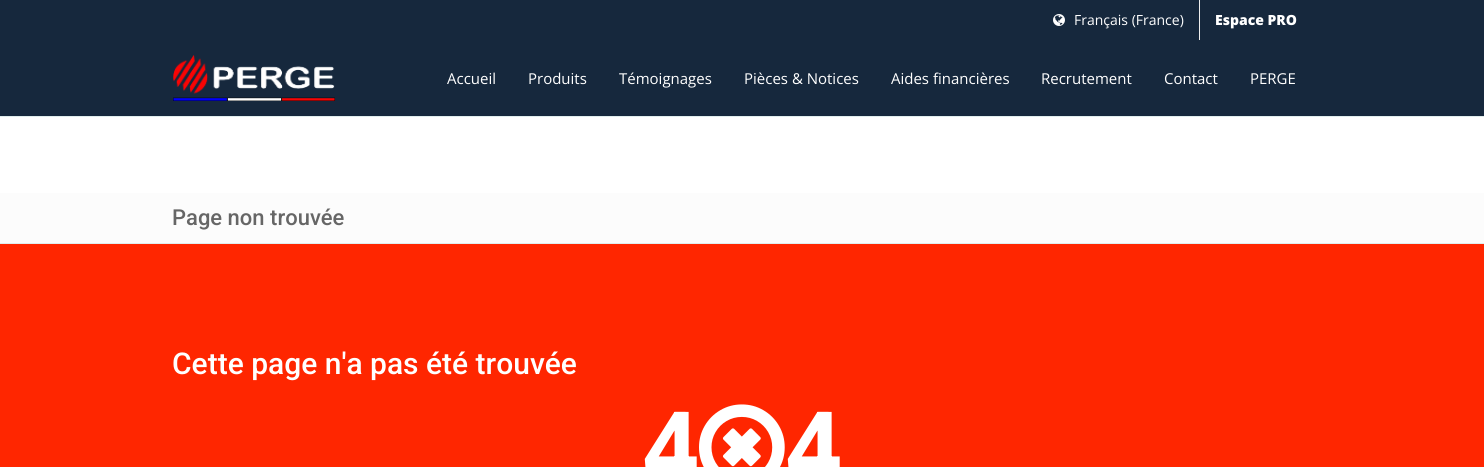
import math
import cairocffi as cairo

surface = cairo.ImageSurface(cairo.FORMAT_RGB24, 1484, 467)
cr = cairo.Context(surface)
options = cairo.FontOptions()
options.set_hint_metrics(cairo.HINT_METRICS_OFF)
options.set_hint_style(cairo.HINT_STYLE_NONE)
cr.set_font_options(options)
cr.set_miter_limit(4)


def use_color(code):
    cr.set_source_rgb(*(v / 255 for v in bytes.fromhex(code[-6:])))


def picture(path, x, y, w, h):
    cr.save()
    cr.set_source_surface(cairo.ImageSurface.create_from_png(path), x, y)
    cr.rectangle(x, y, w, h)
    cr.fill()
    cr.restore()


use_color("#ffffff")
cr.paint()
use_color("#16283d")
cr.rectangle(0, 0, 1484, 116)
cr.fill()
use_color("#eeeeee")
cr.rectangle(1199, 0, 1, 40)
cr.fill()
picture("img1.png", 1053, 14, 12, 12)
cr.select_font_face("Open Sans")
cr.set_font_size(14)
use_color("#ffffff")
cr.move_to(1074, 25)
cr.show_text("Français (France)")
cr.select_font_face("Open Sans ExtraBold")
cr.move_to(1215, 25)
cr.show_text("Espace PRO")
use_color("#e0eded")
cr.rectangle(0, 116, 1484, 1)
cr.fill()
picture("img2.png", 173, 55, 162, 46)
cr.select_font_face("Open Sans")
cr.set_font_size(15)
use_color("#ffffff")
cr.move_to(447, 84)
cr.show_text("Accueil")
cr.move_to(528, 84)
cr.show_text("Produits")
cr.move_to(619, 84)
cr.show_text("Témoignages")
cr.move_to(744, 84)
cr.show_text("Pièces & Notices")
cr.move_to(891, 84)
cr.show_text("Aides financières")
cr.move_to(1041, 84)
cr.show_text("Recrutement")
cr.move_to(1164, 84)
cr.show_text("Contact")
cr.move_to(1250, 84)
cr.show_text("PERGE")
use_color("#fcfcfc")
cr.rectangle(0, 193, 1484, 50)
cr.fill()
use_color("#e0eded")
cr.rectangle(0, 243, 1484, 1)
cr.fill()
cr.select_font_face("Roboto Medium")
cr.set_font_size(22)
use_color("#666666")
cr.move_to(172, 225)
cr.show_text("Page non trouvée")
use_color("#ff2600")
cr.rectangle(0, 244, 1484, 223)
cr.fill()
cr.set_font_size(30)
use_color("#ffffff")
cr.move_to(172, 374)
cr.show_text("Cette page n'a pas été trouvée")
cr.select_font_face("Roboto", cairo.FONT_SLANT_NORMAL, cairo.FONT_WEIGHT_BOLD)
cr.set_font_size(100)
cr.move_to(642, 483)
cr.show_text("4")
picture("img3.png", 699, 404, 86, 63)
cr.move_to(785, 483)
cr.show_text("4")
surface.write_to_png("result.png")
